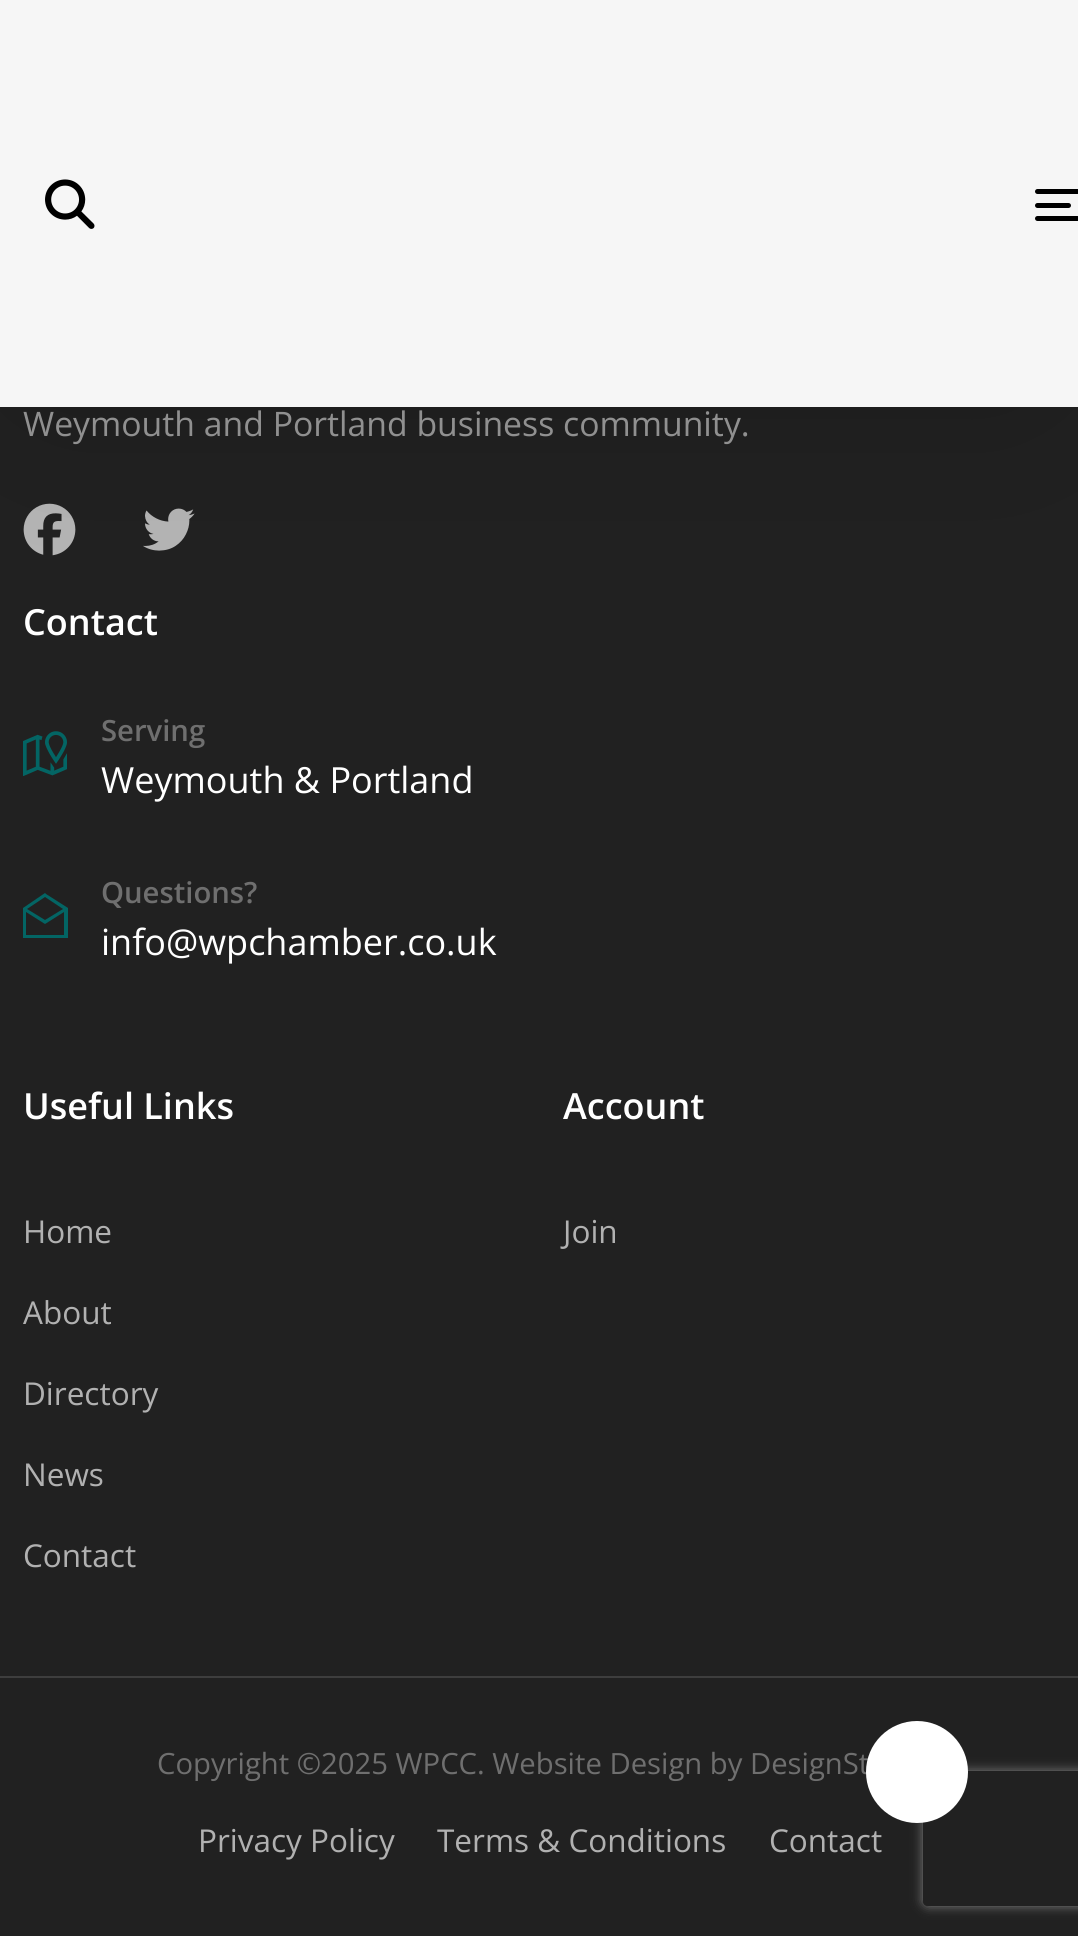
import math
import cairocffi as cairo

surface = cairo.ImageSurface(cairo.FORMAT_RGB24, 1078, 1936)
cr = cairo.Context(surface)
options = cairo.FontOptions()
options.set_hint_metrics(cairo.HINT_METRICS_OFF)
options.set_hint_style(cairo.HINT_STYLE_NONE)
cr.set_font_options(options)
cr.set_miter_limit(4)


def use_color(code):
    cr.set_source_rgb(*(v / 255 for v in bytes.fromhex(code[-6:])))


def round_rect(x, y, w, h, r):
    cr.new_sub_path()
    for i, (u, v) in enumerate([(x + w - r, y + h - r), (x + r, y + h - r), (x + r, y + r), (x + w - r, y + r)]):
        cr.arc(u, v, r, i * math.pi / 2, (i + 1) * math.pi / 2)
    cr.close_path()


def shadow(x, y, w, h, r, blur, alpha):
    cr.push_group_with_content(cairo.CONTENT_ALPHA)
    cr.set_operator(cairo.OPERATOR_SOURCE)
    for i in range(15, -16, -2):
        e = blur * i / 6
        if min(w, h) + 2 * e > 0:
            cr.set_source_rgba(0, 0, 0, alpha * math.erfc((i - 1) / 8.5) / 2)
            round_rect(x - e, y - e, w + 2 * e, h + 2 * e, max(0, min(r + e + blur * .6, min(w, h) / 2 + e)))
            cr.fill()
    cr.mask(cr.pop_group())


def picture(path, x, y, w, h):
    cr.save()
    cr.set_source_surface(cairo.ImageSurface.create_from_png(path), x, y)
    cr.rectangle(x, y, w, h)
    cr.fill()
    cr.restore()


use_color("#212121")
cr.paint()
picture("img2.png", 23, 503, 53, 53)
picture("img3.png", 143, 508, 52, 43)
use_color("#000000")
shadow(41, 52, 990, 317, 0, 101, 0.25)
use_color("#f6f6f6")
cr.rectangle(0, 0, 1078, 407)
cr.fill()
picture("img1.png", 45, 179, 50, 50)
use_color("#000000")
round_rect(1035, 189, 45, 5, 2.5)
cr.fill()
round_rect(1035, 203, 36, 5, 2.5)
cr.fill()
round_rect(1035, 216, 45, 5, 2.5)
cr.fill()
cr.select_font_face("Open Sans")
cr.set_font_size(33.75)
use_color("#909090")
cr.move_to(23, 436)
cr.show_text("Weymouth and Portland business community.")
cr.select_font_face("Open Sans SemiBold")
cr.set_font_size(36)
use_color("#ffffff")
cr.move_to(23, 635)
cr.show_text("Contact")
picture("img4.png", 23, 731, 44, 45)
cr.set_font_size(29.25)
use_color("#6f6f6f")
cr.move_to(101, 741)
cr.show_text("Serving")
cr.select_font_face("Open Sans")
cr.set_font_size(36)
use_color("#ffffff")
cr.move_to(101, 793)
cr.show_text("Weymouth & Portland")
use_color("#036564")
cr.new_path()
cr.move_to(45, 893)
cr.line_to(23, 908)
cr.line_to(23, 938)
cr.line_to(68, 938)
cr.line_to(68, 908)
cr.line_to(46, 894)
cr.close_path()
cr.move_to(45, 897)
cr.line_to(63, 909)
cr.line_to(45, 920)
cr.line_to(27, 909)
cr.close_path()
cr.move_to(26, 912)
cr.line_to(45, 924)
cr.line_to(64, 912)
cr.line_to(64, 935)
cr.line_to(26, 935)
cr.close_path()
cr.fill()
cr.select_font_face("Open Sans SemiBold")
cr.set_font_size(29.25)
use_color("#6f6f6f")
cr.move_to(101, 903)
cr.show_text("Questions?")
cr.select_font_face("Open Sans")
cr.set_font_size(36)
use_color("#ffffff")
cr.move_to(101, 955)
cr.show_text("info@wpchamber.co.uk")
cr.select_font_face("Open Sans SemiBold")
cr.move_to(23, 1119)
cr.show_text("Useful Links")
cr.select_font_face("Open Sans")
cr.set_font_size(31.5)
use_color("#b1b1b1")
cr.move_to(23, 1243)
cr.show_text("Home")
cr.move_to(23, 1324)
cr.show_text("About")
cr.move_to(23, 1405)
cr.show_text("Directory")
cr.move_to(23, 1486)
cr.show_text("News")
cr.move_to(23, 1567)
cr.show_text("Contact")
cr.select_font_face("Open Sans SemiBold")
cr.set_font_size(36)
use_color("#ffffff")
cr.move_to(563, 1119)
cr.show_text("Account")
cr.select_font_face("Open Sans")
cr.set_font_size(31.5)
use_color("#b1b1b1")
cr.move_to(563, 1243)
cr.show_text("Join")
use_color("#3e3e3e")
cr.rectangle(0, 1676, 1078, 2)
cr.fill()
cr.set_font_size(29.25)
use_color("#6f6f6f")
cr.move_to(157, 1774)
cr.show_text("Copyright ©2025 WPCC. Website Design by DesignSt")
cr.set_font_size(31.5)
use_color("#b1b1b1")
cr.move_to(198, 1852)
cr.show_text("Privacy Policy")
cr.move_to(437, 1852)
cr.show_text("Terms & Conditions")
cr.move_to(769, 1852)
cr.show_text("Contact")
cr.save()
cr.set_fill_rule(cairo.FILL_RULE_EVEN_ODD)
cr.new_path()
cr.move_to(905, 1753)
cr.line_to(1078, 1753)
cr.line_to(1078, 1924)
cr.line_to(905, 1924)
cr.close_path()
cr.move_to(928, 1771)
cr.line_to(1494, 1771)
cr.curve_to(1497, 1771, 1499, 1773, 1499, 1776)
cr.line_to(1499, 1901)
cr.curve_to(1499, 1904, 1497, 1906, 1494, 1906)
cr.line_to(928, 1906)
cr.curve_to(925, 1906, 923, 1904, 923, 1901)
cr.line_to(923, 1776)
cr.curve_to(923, 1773, 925, 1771, 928, 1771)
cr.close_path()
cr.clip()
use_color("#808080")
shadow(923, 1771, 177, 135, 5, 5.5, 1)
cr.restore()
use_color("#ffffff")
cr.arc(917, 1772, 51, 0, 2 * math.pi)
cr.fill()
surface.write_to_png("result.png")
